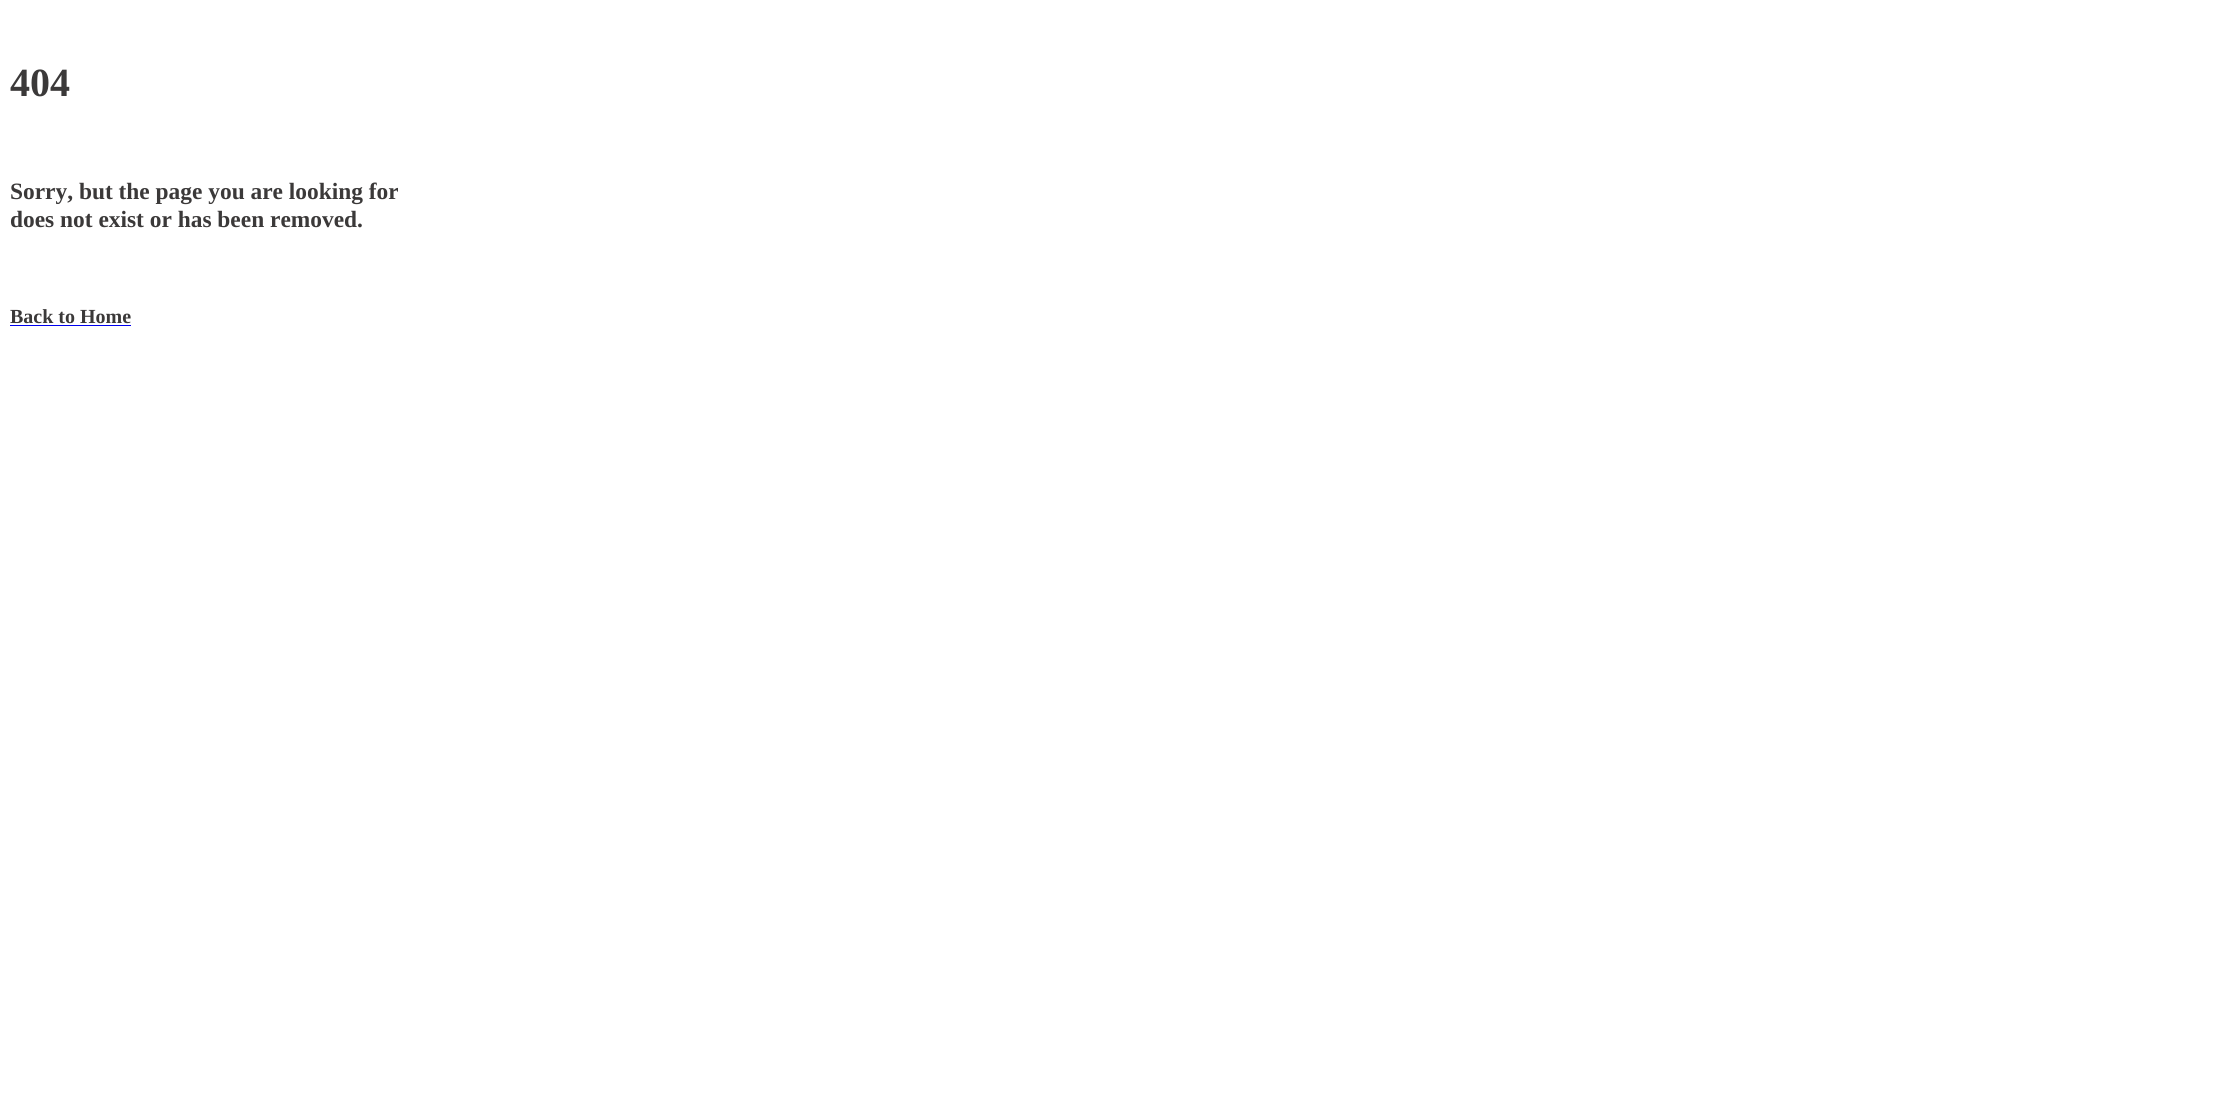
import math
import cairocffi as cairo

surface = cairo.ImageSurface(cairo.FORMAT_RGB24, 2222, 1106)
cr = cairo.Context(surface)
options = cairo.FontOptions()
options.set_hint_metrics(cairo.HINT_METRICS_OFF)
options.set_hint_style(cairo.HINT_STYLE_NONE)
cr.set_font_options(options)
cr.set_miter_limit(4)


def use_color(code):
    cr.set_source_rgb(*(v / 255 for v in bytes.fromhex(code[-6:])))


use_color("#ffffff")
cr.paint()
cr.select_font_face("Liberation Serif", cairo.FONT_SLANT_NORMAL, cairo.FONT_WEIGHT_BOLD)
cr.set_font_size(40)
use_color("#3b3939")
cr.move_to(10, 96)
cr.show_text("404")
cr.set_font_size(23.4)
cr.move_to(10, 199)
cr.show_text("Sorry, but the page you are looking for")
cr.move_to(10, 227)
cr.show_text("does not exist or has been removed.")
cr.set_font_size(20)
cr.move_to(10, 323)
cr.show_text("Back to Home")
use_color("#0000ee")
cr.rectangle(10, 325, 121, 1)
cr.fill()
surface.write_to_png("result.png")
